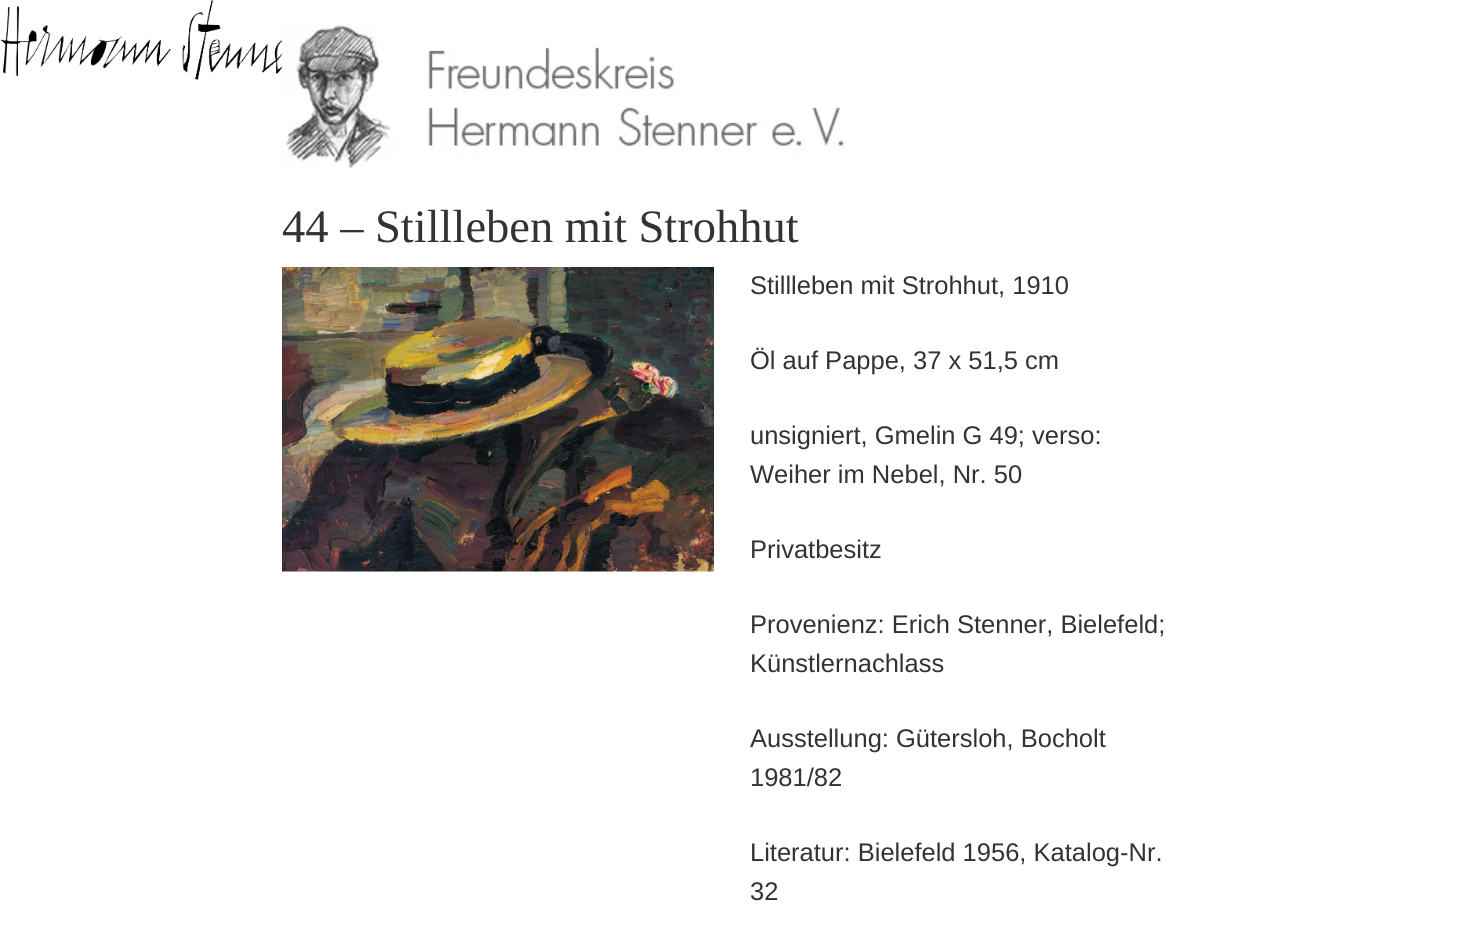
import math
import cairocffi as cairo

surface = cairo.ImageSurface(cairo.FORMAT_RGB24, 1463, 933)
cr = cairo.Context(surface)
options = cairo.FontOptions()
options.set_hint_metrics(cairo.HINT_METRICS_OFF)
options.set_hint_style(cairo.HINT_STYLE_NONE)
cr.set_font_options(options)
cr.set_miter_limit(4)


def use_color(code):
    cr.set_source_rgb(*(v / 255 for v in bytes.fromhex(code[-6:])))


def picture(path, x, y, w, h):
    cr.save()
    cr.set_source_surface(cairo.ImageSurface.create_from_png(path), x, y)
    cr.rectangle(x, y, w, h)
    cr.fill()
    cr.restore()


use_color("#ffffff")
cr.paint()
picture("img1.png", 0, 0, 282, 80)
picture("img2.png", 282, 24, 562, 145)
cr.select_font_face("Liberation Serif")
cr.set_font_size(46.5)
use_color("#333333")
cr.move_to(282, 242)
cr.show_text("44 – Stillleben mit Strohhut")
picture("img3.png", 282, 267, 432, 305)
cr.select_font_face("Liberation Sans")
cr.set_font_size(25.5)
cr.move_to(750, 294)
cr.show_text("Stillleben mit Strohhut, 1910")
cr.move_to(750, 369)
cr.show_text("Öl auf Pappe, 37 x 51,5 cm")
cr.move_to(750, 444)
cr.show_text("unsigniert, Gmelin G 49; verso:")
cr.move_to(750, 483)
cr.show_text("Weiher im Nebel, Nr. 50")
cr.move_to(750, 558)
cr.show_text("Privatbesitz")
cr.move_to(750, 633)
cr.show_text("Provenienz: Erich Stenner, Bielefeld;")
cr.move_to(750, 672)
cr.show_text("Künstlernachlass")
cr.move_to(750, 747)
cr.show_text("Ausstellung: Gütersloh, Bocholt")
cr.move_to(750, 786)
cr.show_text("1981/82")
cr.move_to(750, 861)
cr.show_text("Literatur: Bielefeld 1956, Katalog-Nr.")
cr.move_to(750, 900)
cr.show_text("32")
surface.write_to_png("result.png")
